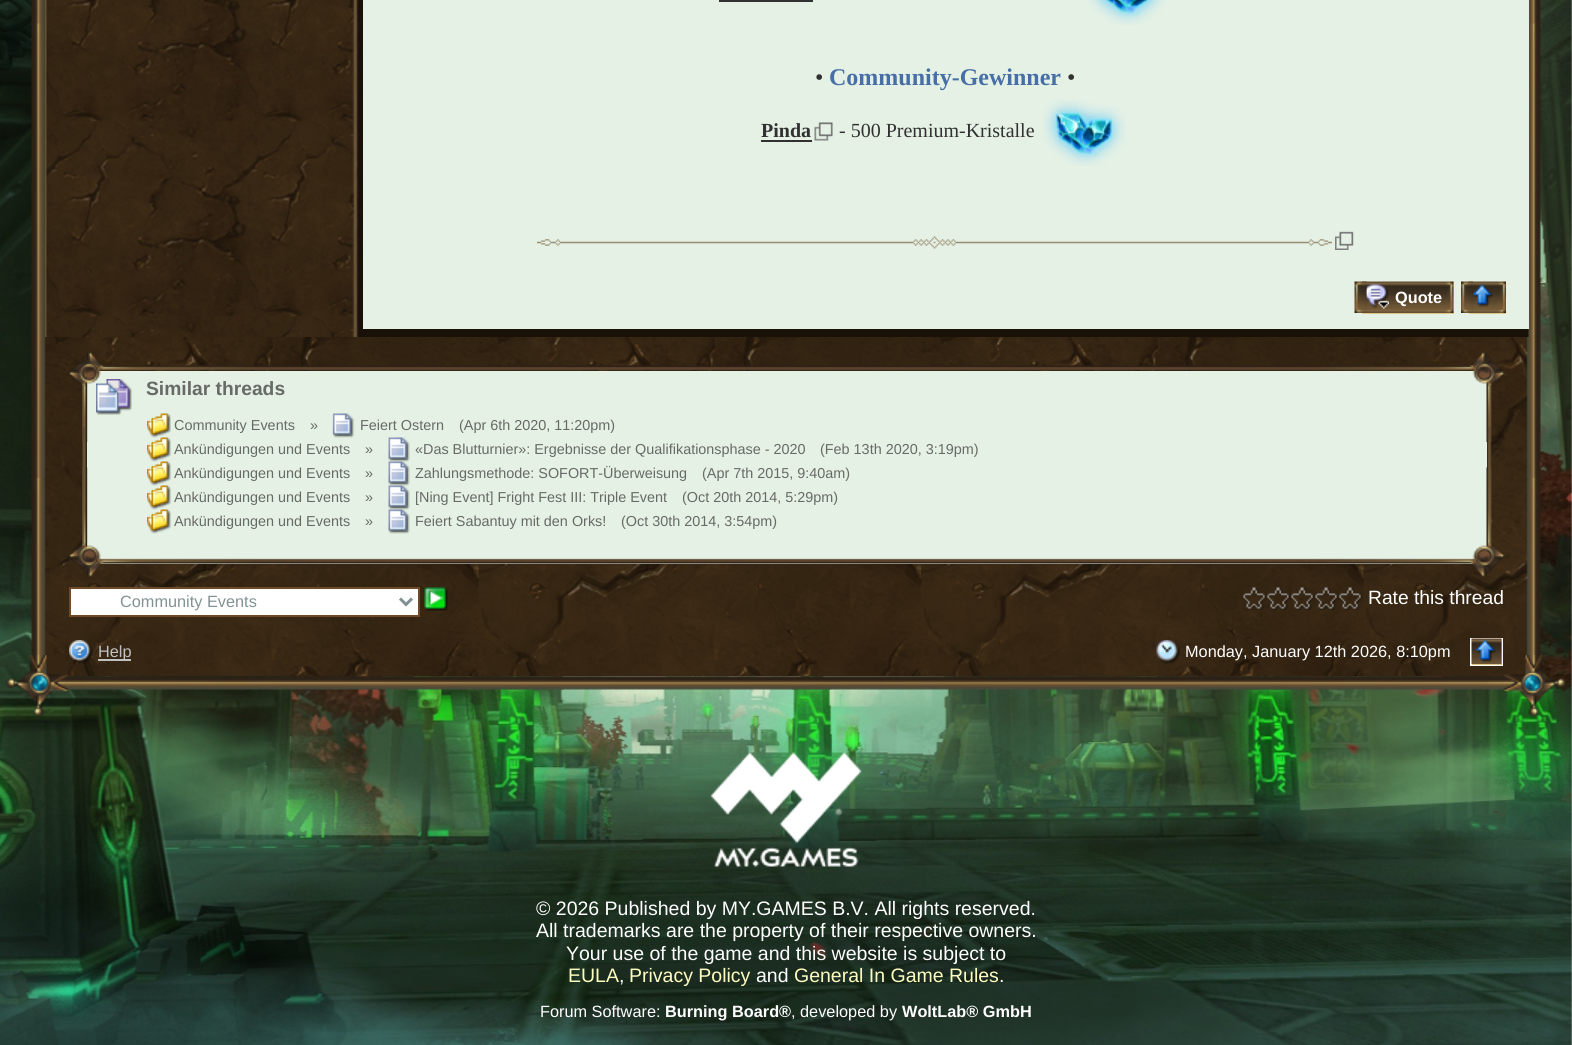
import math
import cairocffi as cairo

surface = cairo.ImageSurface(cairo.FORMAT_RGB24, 1572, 1045)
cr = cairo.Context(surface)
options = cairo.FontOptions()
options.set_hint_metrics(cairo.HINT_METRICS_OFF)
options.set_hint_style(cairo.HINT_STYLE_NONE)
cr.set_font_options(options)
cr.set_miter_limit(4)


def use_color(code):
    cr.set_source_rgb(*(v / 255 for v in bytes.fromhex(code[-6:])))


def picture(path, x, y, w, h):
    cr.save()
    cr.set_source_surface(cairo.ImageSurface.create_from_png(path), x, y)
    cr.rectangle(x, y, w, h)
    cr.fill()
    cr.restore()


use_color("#ffffff")
cr.paint()
picture("img1.png", 0, 0, 1572, 1045)
picture("img2.png", 30, 0, 1512, 676)
picture("img3.png", 45, 0, 1484, 337)
use_color("#e5f1e5")
cr.rectangle(363, 0, 1166, 329)
cr.fill()
use_color("#313131")
cr.rectangle(719, 0, 94, 2)
cr.fill()
picture("img4.png", 1088, 0, 78, 25)
cr.select_font_face("Liberation Serif")
cr.set_font_size(24)
cr.move_to(815, 85)
cr.show_text("•")
cr.select_font_face("Liberation Serif", cairo.FONT_SLANT_NORMAL, cairo.FONT_WEIGHT_BOLD)
use_color("#476fa5")
cr.move_to(829, 85)
cr.show_text("Community-Gewinner")
cr.select_font_face("Liberation Serif")
use_color("#313131")
cr.move_to(1067, 85)
cr.show_text("•")
cr.select_font_face("Liberation Serif", cairo.FONT_SLANT_NORMAL, cairo.FONT_WEIGHT_BOLD)
cr.set_font_size(20)
cr.move_to(761, 137)
cr.show_text("Pinda")
cr.rectangle(761, 140, 51, 2)
cr.fill()
picture("img5.png", 814, 122, 19, 19)
cr.select_font_face("Liberation Serif")
cr.move_to(839, 137)
cr.show_text("- 500 Premium-Kristalle")
picture("img6.png", 1042, 99, 84, 67)
picture("img7.png", 537, 236, 795, 13)
picture("img8.png", 1335, 231, 19, 19)
use_color("#dfc584")
cr.rectangle(1362, 282, 92, 32)
cr.fill()
picture("img9.png", 1362, 281, 92, 32)
picture("img11.png", 1366, 284, 23, 25)
picture("img10.png", 1354, 281, 13, 32)
cr.select_font_face("Liberation Sans", cairo.FONT_SLANT_NORMAL, cairo.FONT_WEIGHT_BOLD)
cr.set_font_size(16.3)
use_color("#ffffff")
cr.move_to(1395, 303)
cr.show_text("Quote")
use_color("#dfc584")
cr.rectangle(1469, 313, 37, 1)
cr.fill()
picture("img12.png", 1468, 281, 38, 32)
picture("img13.png", 1461, 281, 12, 32)
picture("img14.png", 1473, 284, 20, 23)
picture("img15.png", 82, 381, 1410, 167)
use_color("#e5f1e5")
cr.rectangle(87, 371, 1400, 193)
cr.fill()
picture("img16.png", 69, 352, 1436, 90)
picture("img17.png", 96, 379, 36, 36)
picture("img18.png", 69, 467, 1436, 110)
cr.set_font_size(19.25)
use_color("#676a67")
cr.move_to(146, 395)
cr.show_text("Similar threads")
picture("img19.png", 147, 413, 24, 25)
cr.select_font_face("Liberation Sans")
cr.set_font_size(14.4)
cr.move_to(174, 430)
cr.show_text("Community Events")
cr.move_to(310, 430)
cr.show_text("»")
picture("img20.png", 332, 413, 23, 25)
cr.move_to(360, 430)
cr.show_text("Feiert Ostern")
cr.move_to(459, 430)
cr.show_text("(Apr 6th 2020, 11:20pm)")
picture("img21.png", 147, 437, 24, 25)
cr.move_to(174, 454)
cr.show_text("Ankündigungen und Events")
cr.move_to(365, 454)
cr.show_text("»")
picture("img22.png", 388, 437, 22, 25)
cr.move_to(415, 454)
cr.show_text("«Das Blutturnier»: Ergebnisse der Qualifikationsphase - 2020")
cr.move_to(820, 454)
cr.show_text("(Feb 13th 2020, 3:19pm)")
picture("img21.png", 147, 461, 24, 25)
cr.move_to(174, 478)
cr.show_text("Ankündigungen und Events")
cr.move_to(365, 478)
cr.show_text("»")
picture("img23.png", 388, 461, 22, 25)
cr.move_to(415, 478)
cr.show_text("Zahlungsmethode: SOFORT-Überweisung")
cr.move_to(702, 478)
cr.show_text("(Apr 7th 2015, 9:40am)")
picture("img21.png", 147, 485, 24, 25)
cr.move_to(174, 502)
cr.show_text("Ankündigungen und Events")
cr.move_to(365, 502)
cr.show_text("»")
picture("img23.png", 388, 485, 22, 25)
cr.move_to(415, 502)
cr.show_text("[Ning Event] Fright Fest III: Triple Event")
cr.move_to(682, 502)
cr.show_text("(Oct 20th 2014, 5:29pm)")
picture("img21.png", 147, 509, 24, 25)
cr.move_to(174, 526)
cr.show_text("Ankündigungen und Events")
cr.move_to(365, 526)
cr.show_text("»")
picture("img23.png", 388, 509, 22, 25)
cr.move_to(415, 526)
cr.show_text("Feiert Sabantuy mit den Orks!")
cr.move_to(621, 526)
cr.show_text("(Oct 30th 2014, 3:54pm)")
use_color("#ffffff")
cr.rectangle(70, 588, 349, 28)
cr.fill_preserve()
use_color("#6e4a29")
cr.stroke()
cr.new_path()
cr.move_to(400, 598.5)
cr.line_to(406, 604.5)
cr.line_to(412, 598.5)
use_color("#829292")
cr.set_line_width(3)
cr.stroke()
cr.set_font_size(16.3)
cr.move_to(120, 607)
cr.show_text("Community Events")
picture("img24.png", 424, 587, 24, 24)
picture("img25.png", 1243, 587, 24, 24)
picture("img26.png", 1267, 587, 24, 24)
picture("img27.png", 1291, 587, 24, 24)
picture("img28.png", 1315, 587, 24, 24)
picture("img29.png", 1339, 587, 24, 24)
cr.set_font_size(19.25)
use_color("#ffffff")
cr.move_to(1368, 604)
cr.show_text("Rate this thread")
picture("img30.png", 6, 655, 1560, 62)
picture("img31.png", 69, 640, 24, 24)
use_color("#c0c0c0")
cr.rectangle(98, 659, 33, 2)
cr.fill()
cr.set_font_size(16.3)
cr.move_to(98, 657)
cr.show_text("Help")
picture("img32.png", 1156, 640, 24, 24)
use_color("#ffffff")
cr.move_to(1185, 657)
cr.show_text("Monday, January 12th 2026, 8:10pm")
cr.rectangle(1471, 639, 31, 26)
cr.set_line_width(2)
cr.stroke()
use_color("#dfc584")
cr.rectangle(1472, 639, 30, 26)
cr.fill()
picture("img33.png", 1471, 638, 31, 26)
picture("img34.png", 1475, 640, 21, 23)
picture("img35.png", 710, 752, 152, 115)
cr.set_font_size(19.5)
use_color("#ffffff")
cr.move_to(536, 915)
cr.show_text("© 2026 Published by MY.GAMES B.V. All rights reserved.")
cr.move_to(536, 937)
cr.show_text("All trademarks are the property of their respective owners.")
cr.move_to(566, 960)
cr.show_text("Your use of the game and this website is subject to")
use_color("#fffcc0")
cr.move_to(568, 982)
cr.show_text("EULA")
use_color("#ffffff")
cr.move_to(619, 982)
cr.show_text(",")
use_color("#fffcc0")
cr.move_to(629, 982)
cr.show_text("Privacy Policy")
use_color("#ffffff")
cr.move_to(756, 982)
cr.show_text("and")
use_color("#fffcc0")
cr.move_to(794, 982)
cr.show_text("General In Game Rules")
use_color("#ffffff")
cr.move_to(999, 982)
cr.show_text(".")
cr.set_font_size(16.3)
cr.move_to(540, 1017)
cr.show_text("Forum Software:")
cr.select_font_face("Liberation Sans", cairo.FONT_SLANT_NORMAL, cairo.FONT_WEIGHT_BOLD)
cr.move_to(665, 1017)
cr.show_text("Burning Board®")
cr.select_font_face("Liberation Sans")
cr.move_to(791, 1017)
cr.show_text(", developed by")
cr.select_font_face("Liberation Sans", cairo.FONT_SLANT_NORMAL, cairo.FONT_WEIGHT_BOLD)
cr.move_to(902, 1017)
cr.show_text("WoltLab® GmbH")
surface.write_to_png("result.png")
